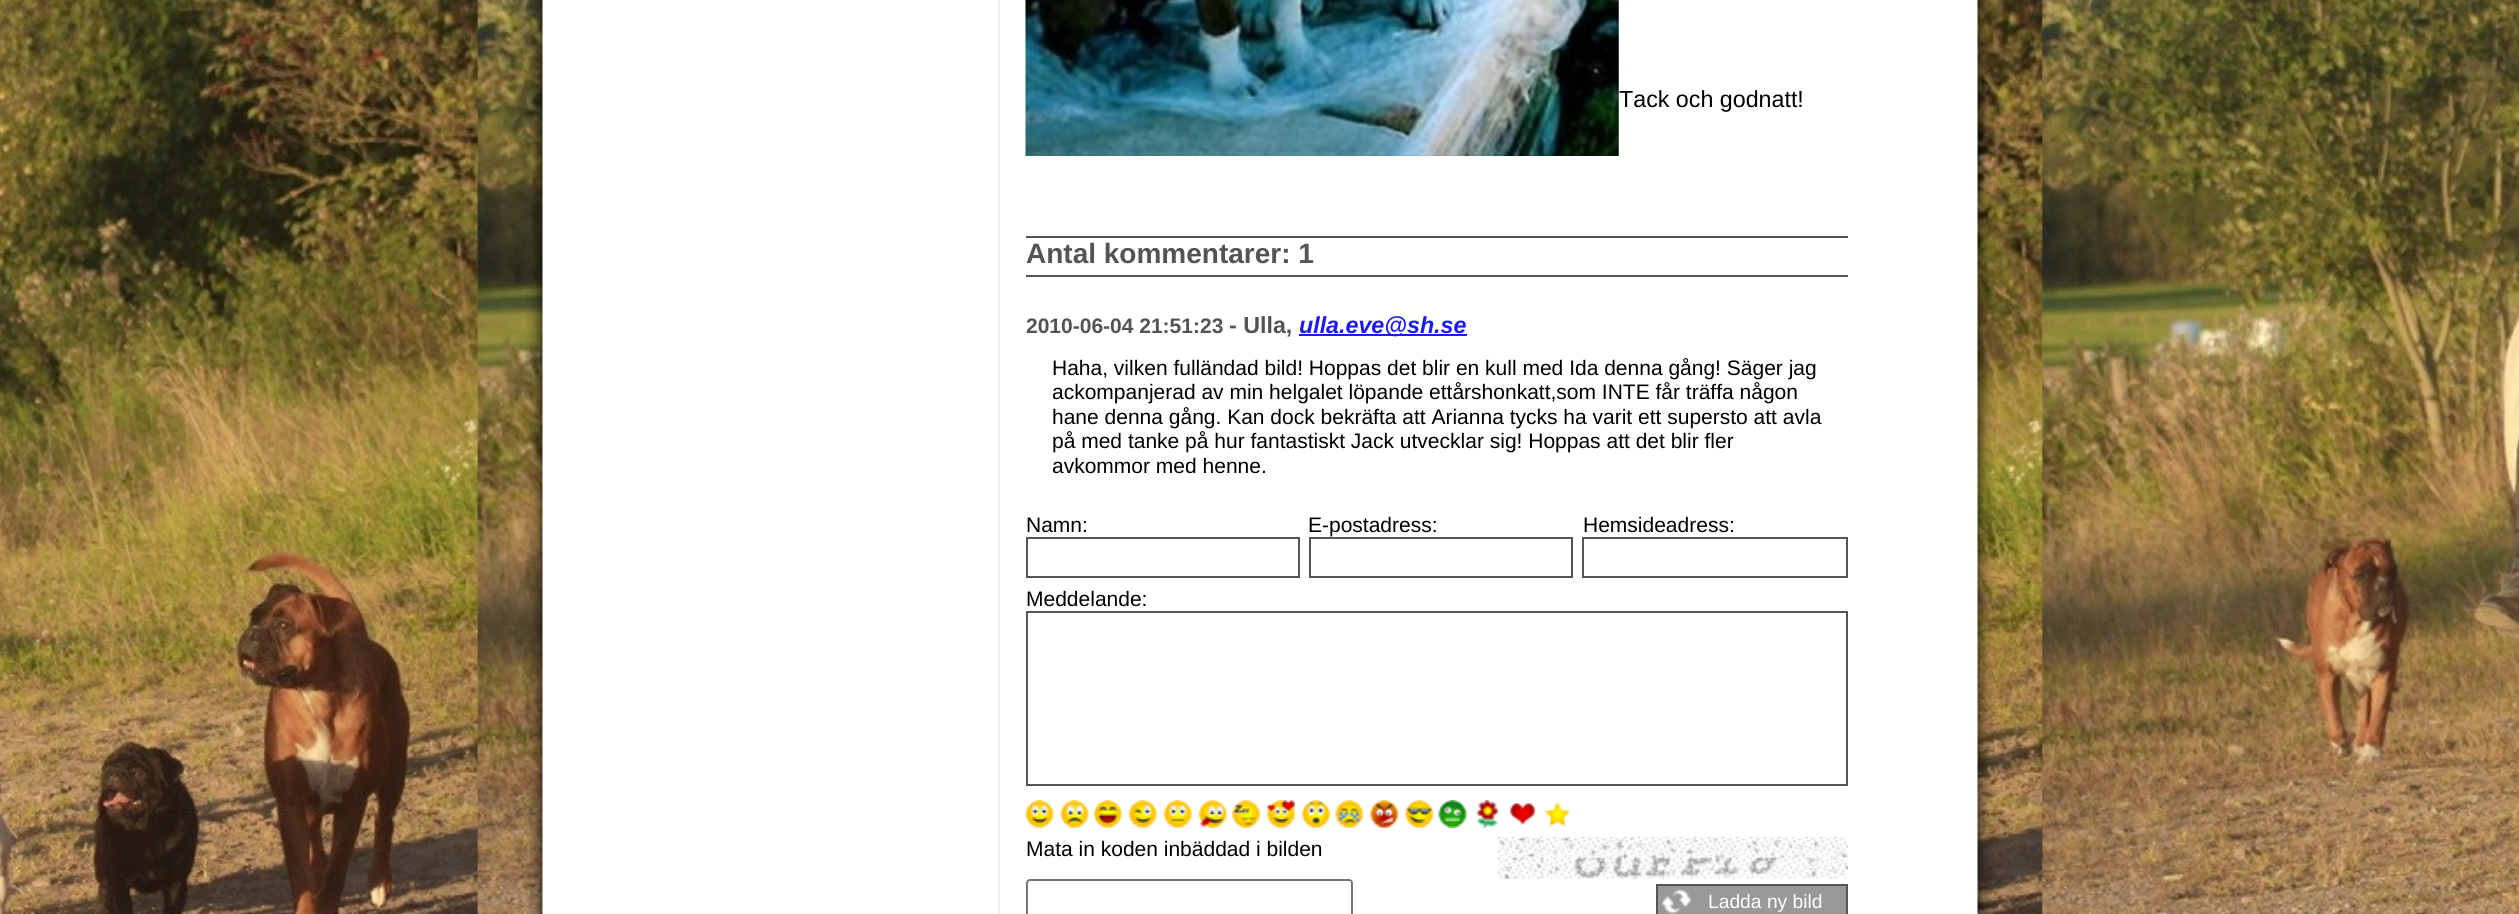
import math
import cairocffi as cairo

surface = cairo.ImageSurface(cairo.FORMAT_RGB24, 2519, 914)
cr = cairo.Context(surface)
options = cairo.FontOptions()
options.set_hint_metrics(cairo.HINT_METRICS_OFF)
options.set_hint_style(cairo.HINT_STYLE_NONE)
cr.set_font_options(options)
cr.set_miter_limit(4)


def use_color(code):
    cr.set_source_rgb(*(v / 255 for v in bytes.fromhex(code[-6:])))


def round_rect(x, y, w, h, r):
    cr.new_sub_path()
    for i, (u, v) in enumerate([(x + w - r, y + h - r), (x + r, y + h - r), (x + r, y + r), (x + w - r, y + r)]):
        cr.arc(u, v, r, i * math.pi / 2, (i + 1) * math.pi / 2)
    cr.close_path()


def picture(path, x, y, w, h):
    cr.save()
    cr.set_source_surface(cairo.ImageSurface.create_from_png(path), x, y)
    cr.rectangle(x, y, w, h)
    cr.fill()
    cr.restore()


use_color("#ffffff")
cr.paint()
picture("img1.png", 0, 0, 2519, 914)
picture("img2.png", 525, 0, 1470, 914)
use_color("#efefef")
cr.rectangle(998, 0, 2, 914)
cr.fill()
picture("img3.png", 1025, 0, 594, 156)
cr.select_font_face("Liberation Sans")
cr.set_font_size(23.25)
use_color("#000000")
cr.move_to(1619, 107)
cr.show_text("Tack och godnatt!")
use_color("#545355")
cr.rectangle(1026, 236, 822, 2)
cr.fill()
cr.rectangle(1026, 275, 822, 2)
cr.fill()
cr.select_font_face("Liberation Sans", cairo.FONT_SLANT_NORMAL, cairo.FONT_WEIGHT_BOLD)
cr.set_font_size(28)
cr.move_to(1026, 263)
cr.show_text("Antal kommentarer: 1")
cr.set_font_size(21)
cr.move_to(1026, 333)
cr.show_text("2010-06-04 21:51:23")
cr.set_font_size(23.25)
cr.move_to(1229, 333)
cr.show_text("- Ulla,")
use_color("#1a1af4")
cr.rectangle(1299, 334, 168, 2)
cr.fill()
cr.select_font_face("Liberation Sans", cairo.FONT_SLANT_ITALIC, cairo.FONT_WEIGHT_BOLD)
cr.move_to(1299, 333)
cr.show_text("ulla.eve@sh.se")
cr.select_font_face("Liberation Sans")
cr.set_font_size(21)
use_color("#000000")
cr.move_to(1052, 375)
cr.show_text("Haha, vilken fulländad bild! Hoppas det blir en kull med Ida denna gång! Säger jag")
cr.move_to(1052, 399)
cr.show_text("ackompanjerad av min helgalet löpande ettårshonkatt,som INTE får träffa någon")
cr.move_to(1052, 424)
cr.show_text("hane denna gång. Kan dock bekräfta att Arianna tycks ha varit ett supersto att avla")
cr.move_to(1052, 448)
cr.show_text("på med tanke på hur fantastiskt Jack utvecklar sig! Hoppas att det blir fler")
cr.move_to(1052, 473)
cr.show_text("avkommor med henne.")
cr.move_to(1026, 532)
cr.show_text("Namn:")
cr.rectangle(1027, 538, 272, 39)
use_color("#555555")
cr.stroke()
use_color("#000000")
cr.move_to(1308, 532)
cr.show_text("E-postadress:")
cr.rectangle(1310, 538, 262, 39)
use_color("#555555")
cr.stroke()
use_color("#000000")
cr.move_to(1583, 532)
cr.show_text("Hemsideadress:")
cr.rectangle(1583, 538, 264, 39)
use_color("#555555")
cr.stroke()
use_color("#000000")
cr.move_to(1026, 606)
cr.show_text("Meddelande:")
cr.rectangle(1027, 612, 820, 173)
use_color("#555555")
cr.stroke()
picture("img4.png", 1025, 800, 29, 28)
picture("img5.png", 1060, 800, 29, 28)
picture("img6.png", 1093, 800, 29, 28)
picture("img7.png", 1128, 800, 29, 28)
picture("img8.png", 1163, 800, 29, 28)
picture("img9.png", 1198, 800, 29, 28)
picture("img10.png", 1232, 800, 28, 28)
picture("img11.png", 1267, 800, 28, 28)
picture("img12.png", 1302, 800, 28, 28)
picture("img13.png", 1335, 800, 29, 28)
picture("img14.png", 1370, 800, 29, 28)
picture("img15.png", 1405, 800, 29, 28)
picture("img16.png", 1438, 800, 29, 28)
picture("img17.png", 1476, 800, 23, 28)
picture("img18.png", 1509, 803, 27, 22)
picture("img19.png", 1543, 801, 28, 26)
use_color("#000000")
cr.move_to(1026, 856)
cr.show_text("Mata in koden inbäddad i bilden")
round_rect(1027, 880, 325, 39, 3)
use_color("#767676")
cr.stroke()
picture("img20.png", 1498, 836, 350, 22)
picture("img21.png", 1498, 857, 350, 22)
use_color("#999999")
cr.rectangle(1658, 886, 188, 28)
cr.fill()
picture("img22.png", 1661, 889, 31, 25)
cr.rectangle(1657, 885, 190, 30)
use_color("#555555")
cr.stroke()
cr.set_font_size(19.25)
use_color("#ffffff")
cr.move_to(1708, 908)
cr.show_text("Ladda ny bild")
surface.write_to_png("result.png")
